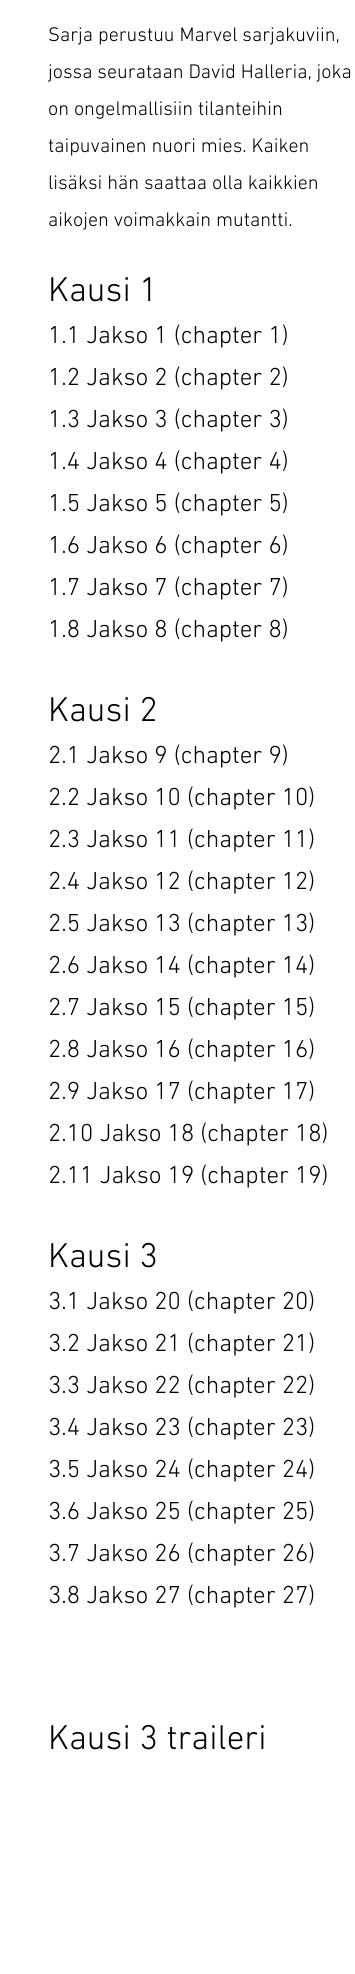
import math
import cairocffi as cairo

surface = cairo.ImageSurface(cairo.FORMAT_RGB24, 355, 1974)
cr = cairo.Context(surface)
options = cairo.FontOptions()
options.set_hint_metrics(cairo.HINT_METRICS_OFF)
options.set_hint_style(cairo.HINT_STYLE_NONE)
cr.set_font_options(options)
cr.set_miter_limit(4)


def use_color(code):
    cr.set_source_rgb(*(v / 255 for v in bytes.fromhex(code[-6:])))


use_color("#ffffff")
cr.paint()
cr.select_font_face("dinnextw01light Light")
cr.set_font_size(20)
use_color("#000000")
cr.move_to(48, 41)
cr.show_text("Sarja perustuu Marvel sarjakuviin,")
cr.move_to(48, 78)
cr.show_text("jossa seurataan David Halleria, joka")
cr.move_to(48, 115)
cr.show_text("on ongelmallisiin tilanteihin")
cr.move_to(48, 152)
cr.show_text("taipuvainen nuori mies. Kaiken")
cr.move_to(48, 189)
cr.show_text("lisäksi hän saattaa olla kaikkien")
cr.move_to(48, 226)
cr.show_text("aikojen voimakkain mutantti.")
cr.set_font_size(35)
cr.move_to(48, 301)
cr.show_text("Kausi 1")
cr.set_font_size(25)
cr.move_to(48, 343)
cr.show_text("1.1 Jakso 1 (chapter 1)")
cr.move_to(48, 385)
cr.show_text("1.2 Jakso 2 (chapter 2)")
cr.move_to(48, 427)
cr.show_text("1.3 Jakso 3 (chapter 3)")
cr.move_to(48, 469)
cr.show_text("1.4 Jakso 4 (chapter 4)")
cr.move_to(48, 511)
cr.show_text("1.5 Jakso 5 (chapter 5)")
cr.move_to(48, 553)
cr.show_text("1.6 Jakso 6 (chapter 6)")
cr.move_to(48, 595)
cr.show_text("1.7 Jakso 7 (chapter 7)")
cr.move_to(48, 637)
cr.show_text("1.8 Jakso 8 (chapter 8)")
cr.set_font_size(35)
cr.move_to(48, 721)
cr.show_text("Kausi 2")
cr.set_font_size(25)
cr.move_to(48, 763)
cr.show_text("2.1 Jakso 9 (chapter 9)")
cr.move_to(48, 805)
cr.show_text("2.2 Jakso 10 (chapter 10)")
cr.move_to(48, 847)
cr.show_text("2.3 Jakso 11 (chapter 11)")
cr.move_to(48, 889)
cr.show_text("2.4 Jakso 12 (chapter 12)")
cr.move_to(48, 931)
cr.show_text("2.5 Jakso 13 (chapter 13)")
cr.move_to(48, 973)
cr.show_text("2.6 Jakso 14 (chapter 14)")
cr.move_to(48, 1015)
cr.show_text("2.7 Jakso 15 (chapter 15)")
cr.move_to(48, 1057)
cr.show_text("2.8 Jakso 16 (chapter 16)")
cr.move_to(48, 1099)
cr.show_text("2.9 Jakso 17 (chapter 17)")
cr.move_to(48, 1141)
cr.show_text("2.10 Jakso 18 (chapter 18)")
cr.move_to(48, 1183)
cr.show_text("2.11 Jakso 19 (chapter 19)")
cr.set_font_size(35)
cr.move_to(48, 1267)
cr.show_text("Kausi 3")
cr.set_font_size(25)
cr.move_to(48, 1309)
cr.show_text("3.1 Jakso 20 (chapter 20)")
cr.move_to(48, 1351)
cr.show_text("3.2 Jakso 21 (chapter 21)")
cr.move_to(48, 1393)
cr.show_text("3.3 Jakso 22 (chapter 22)")
cr.move_to(48, 1435)
cr.show_text("3.4 Jakso 23 (chapter 23)")
cr.move_to(48, 1477)
cr.show_text("3.5 Jakso 24 (chapter 24)")
cr.move_to(48, 1519)
cr.show_text("3.6 Jakso 25 (chapter 25)")
cr.move_to(48, 1561)
cr.show_text("3.7 Jakso 26 (chapter 26)")
cr.move_to(48, 1603)
cr.show_text("3.8 Jakso 27 (chapter 27)")
cr.set_font_size(35)
cr.move_to(48, 1749)
cr.show_text("Kausi 3 traileri")
surface.write_to_png("result.png")
